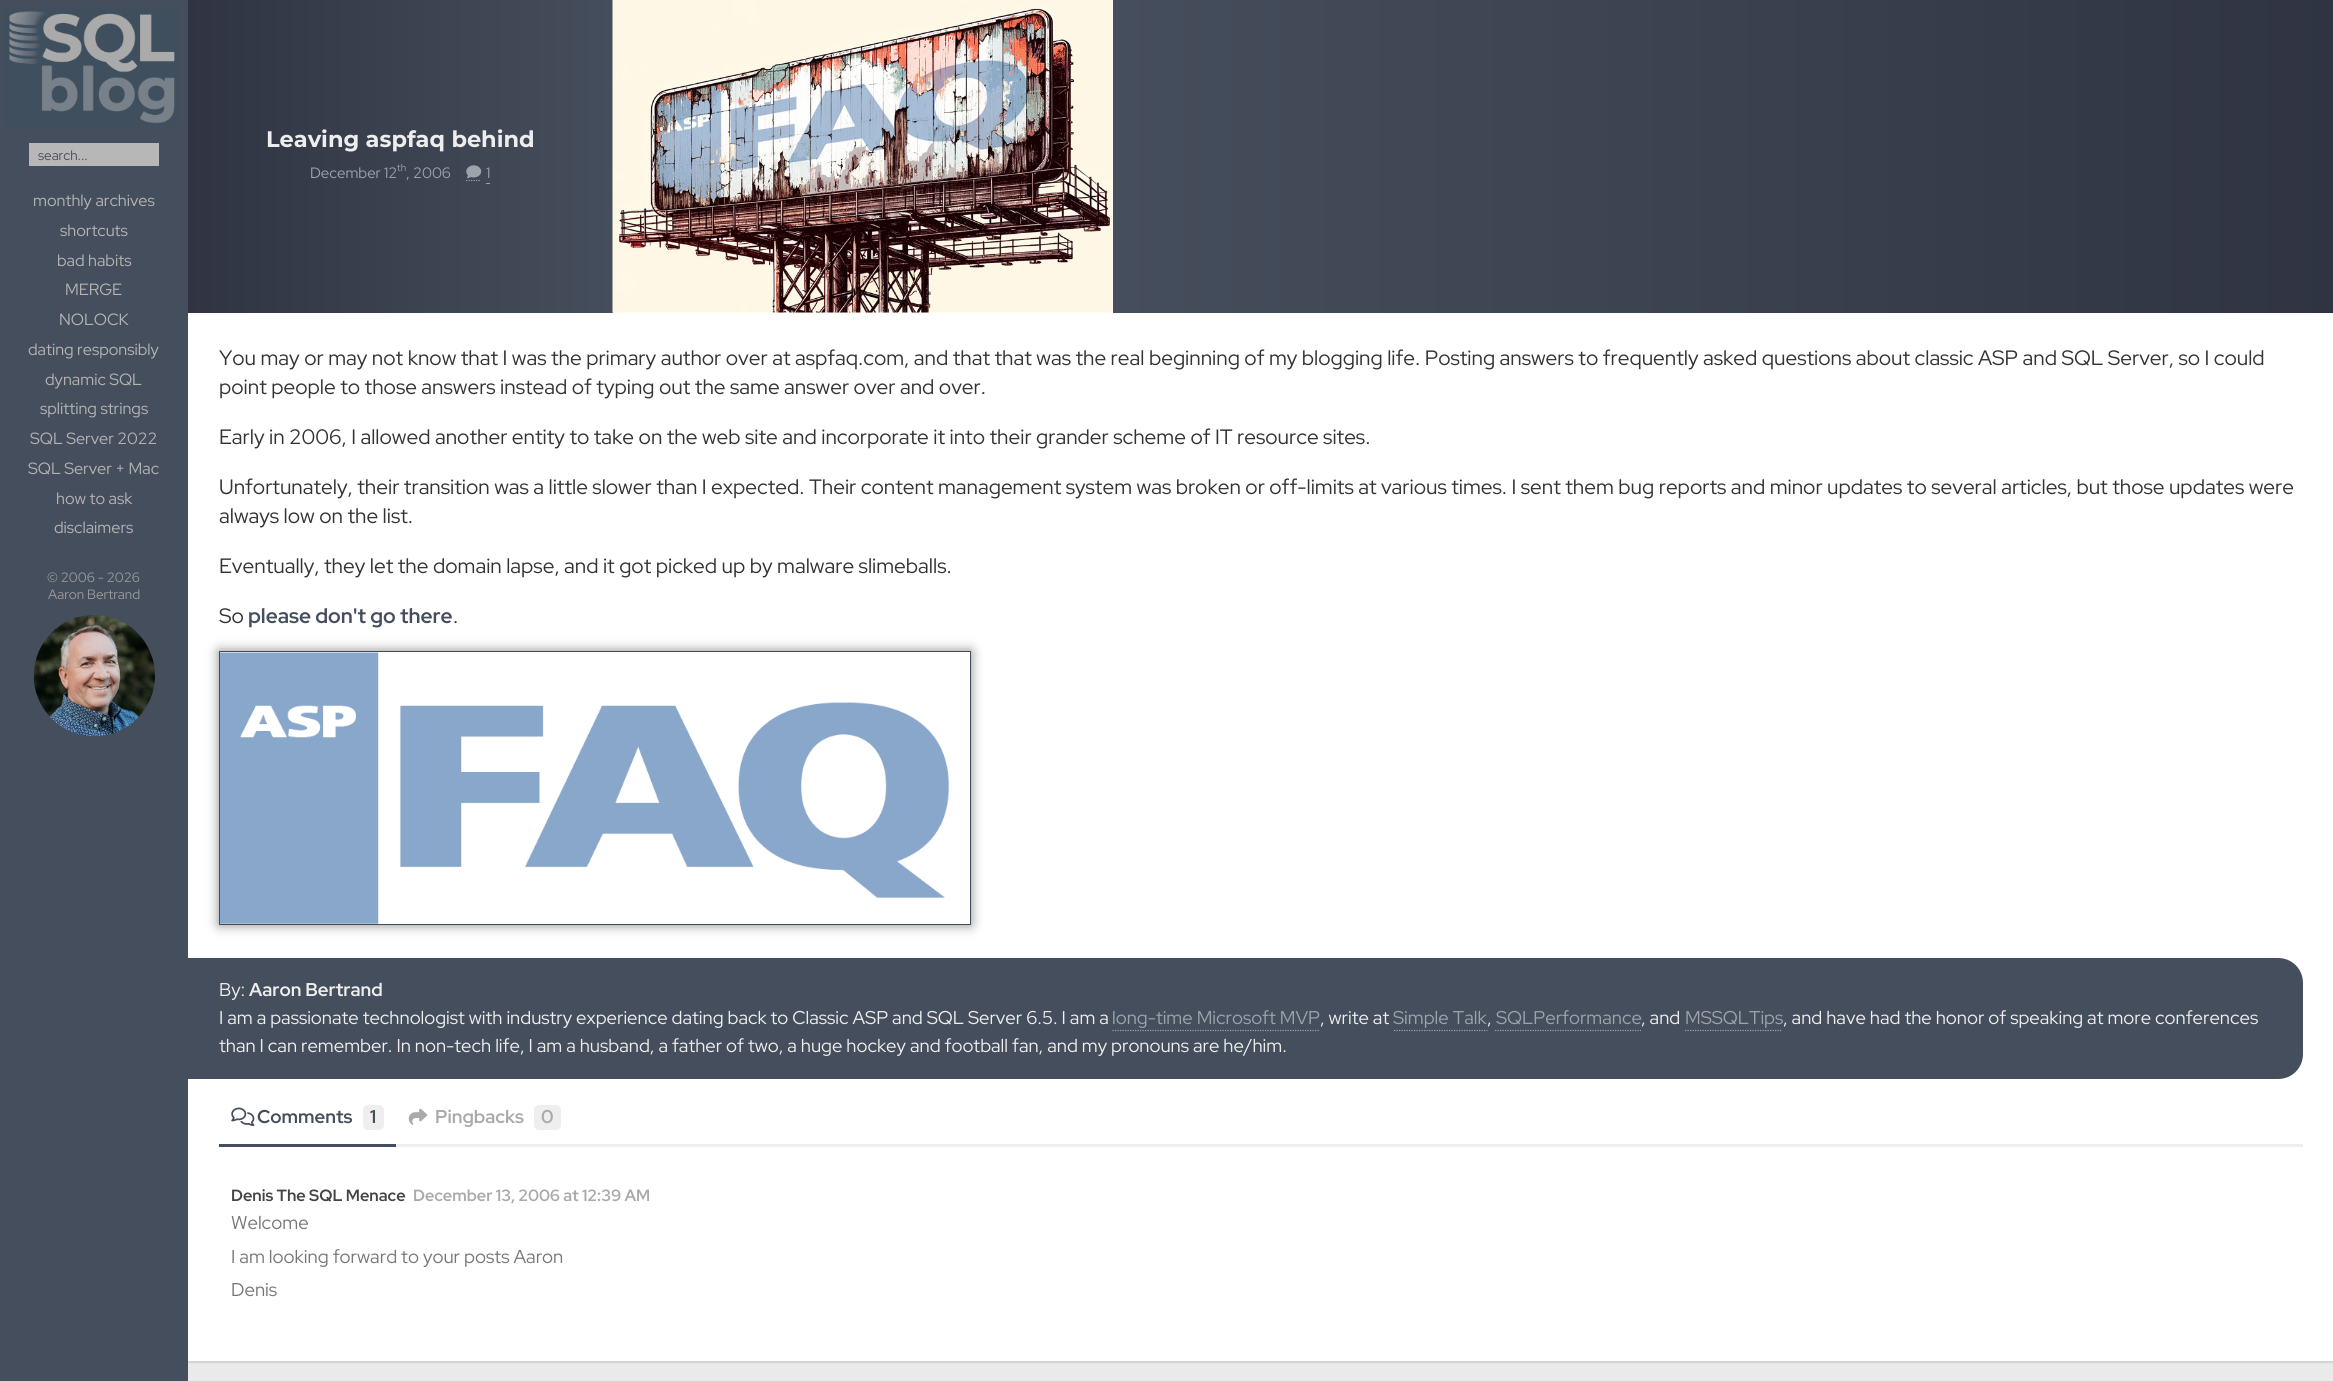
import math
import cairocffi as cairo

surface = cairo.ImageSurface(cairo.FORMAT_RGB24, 2333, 1381)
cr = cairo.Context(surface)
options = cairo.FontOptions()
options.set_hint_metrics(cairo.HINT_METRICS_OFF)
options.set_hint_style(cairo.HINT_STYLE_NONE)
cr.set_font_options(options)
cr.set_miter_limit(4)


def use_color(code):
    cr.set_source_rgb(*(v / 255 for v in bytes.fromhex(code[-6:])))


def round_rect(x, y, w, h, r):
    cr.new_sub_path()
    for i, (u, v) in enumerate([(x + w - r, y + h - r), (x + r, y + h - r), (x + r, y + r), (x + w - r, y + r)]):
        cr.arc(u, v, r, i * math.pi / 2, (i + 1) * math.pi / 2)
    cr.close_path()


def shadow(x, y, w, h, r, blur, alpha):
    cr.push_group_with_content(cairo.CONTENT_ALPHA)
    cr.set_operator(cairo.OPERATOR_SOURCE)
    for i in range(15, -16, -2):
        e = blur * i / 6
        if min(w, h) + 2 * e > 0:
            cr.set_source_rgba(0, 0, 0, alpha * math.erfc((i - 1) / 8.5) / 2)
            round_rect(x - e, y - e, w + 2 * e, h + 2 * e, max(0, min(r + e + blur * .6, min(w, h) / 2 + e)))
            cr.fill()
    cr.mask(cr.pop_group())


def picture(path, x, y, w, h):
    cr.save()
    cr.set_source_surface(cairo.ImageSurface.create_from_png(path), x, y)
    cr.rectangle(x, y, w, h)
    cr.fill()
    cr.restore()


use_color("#eaeaea")
cr.paint()
use_color("#000000")
shadow(188, 1, 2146, 1362, 0, 0.5, 0.1)
use_color("#454e5c")
cr.rectangle(0, 0, 188, 1381)
cr.fill()
picture("img1.png", 4, 7, 174, 119)
use_color("#b7b7b7")
cr.rectangle(29, 143, 130, 23)
cr.fill()
cr.select_font_face("Red Hat Display")
cr.set_font_size(13.5)
use_color("#454e5c")
cr.move_to(38, 160)
cr.show_text("search...")
cr.set_font_size(16.25)
use_color("#b4b4b4")
cr.move_to(33, 206)
cr.show_text("monthly archives")
cr.move_to(60, 236)
cr.show_text("shortcuts")
cr.move_to(57, 266)
cr.show_text("bad habits")
cr.move_to(65, 295)
cr.show_text("MERGE")
cr.move_to(59, 325)
cr.show_text("NOLOCK")
cr.move_to(28, 355)
cr.show_text("dating responsibly")
cr.move_to(45, 385)
cr.show_text("dynamic SQL")
cr.move_to(40, 414)
cr.show_text("splitting strings")
cr.move_to(30, 444)
cr.show_text("SQL Server 2022")
cr.move_to(28, 474)
cr.show_text("SQL Server + Mac")
cr.move_to(56, 504)
cr.show_text("how to ask")
cr.move_to(54, 533)
cr.show_text("disclaimers")
cr.set_font_size(13.5)
use_color("#999999")
cr.move_to(47, 582)
cr.show_text("© 2006 - 2026")
cr.move_to(48, 599)
cr.show_text("Aaron Bertrand")
picture("img2.png", 33, 615, 122, 122)
use_color("#ffffff")
cr.rectangle(188, 0, 2145, 1361)
cr.fill()
gradient = cairo.LinearGradient(613, 156, 187, 156)
gradient.add_color_stop_rgba(0, 0.271, 0.306, 0.361, 1)
gradient.add_color_stop_rgba(1, 0.188, 0.204, 0.259, 1)
cr.set_source(gradient)
cr.rectangle(188, 0, 425, 313)
cr.fill()
cr.select_font_face("Montserrat", cairo.FONT_SLANT_NORMAL, cairo.FONT_WEIGHT_BOLD)
cr.set_font_size(22.5)
use_color("#eeeeee")
cr.move_to(266, 147)
cr.show_text("Leaving aspfaq behind")
cr.select_font_face("Red Hat Display")
cr.set_font_size(15)
use_color("#9ca3aa")
cr.move_to(310, 178)
cr.show_text("December 12")
cr.set_font_size(10)
cr.move_to(397, 171)
cr.show_text("th")
cr.set_font_size(15)
cr.move_to(406, 178)
cr.show_text(", 2006")
cr.new_path()
cr.move_to(466, 180.5)
cr.line_to(481, 180.5)
cr.set_line_width(1.2)
cr.set_dash([1.25, 1.25])
cr.stroke()
cr.rectangle(486, 183, 4, 1)
cr.fill()
picture("img3.png", 466, 165, 16, 14)
cr.move_to(486, 178)
cr.show_text("1")
picture("img4.png", 612, 0, 501, 313)
gradient = cairo.LinearGradient(1113, 156, 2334, 156)
gradient.add_color_stop_rgba(0, 0.271, 0.306, 0.361, 1)
gradient.add_color_stop_rgba(1, 0.188, 0.204, 0.259, 1)
cr.set_source(gradient)
cr.rectangle(1113, 0, 1220, 313)
cr.fill()
cr.set_font_size(20.8)
use_color("#333333")
cr.move_to(219, 365)
cr.show_text("You may or may not know that I was the primary author over at aspfaq.com, and that that was the real beginning of my blogging life. Posting answers to frequently asked questions about classic ASP and SQL Server, so I could")
cr.move_to(219, 394)
cr.show_text("point people to those answers instead of typing out the same answer over and over.")
cr.move_to(219, 444)
cr.show_text("Early in 2006, I allowed another entity to take on the web site and incorporate it into their grander scheme of IT resource sites.")
cr.move_to(219, 494)
cr.show_text("Unfortunately, their transition was a little slower than I expected. Their content management system was broken or off-limits at various times. I sent them bug reports and minor updates to several articles, but those updates were")
cr.move_to(219, 523)
cr.show_text("always low on the list.")
cr.move_to(219, 573)
cr.show_text("Eventually, they let the domain lapse, and it got picked up by malware slimeballs.")
cr.move_to(219, 623)
cr.show_text("So")
cr.select_font_face("Red Hat Display", cairo.FONT_SLANT_NORMAL, cairo.FONT_WEIGHT_BOLD)
use_color("#454e5c")
cr.move_to(248, 623)
cr.show_text("please don't go there")
cr.select_font_face("Red Hat Display")
use_color("#333333")
cr.move_to(453, 623)
cr.show_text(".")
cr.save()
cr.set_fill_rule(cairo.FILL_RULE_EVEN_ODD)
cr.new_path()
cr.move_to(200, 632)
cr.line_to(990, 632)
cr.line_to(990, 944)
cr.line_to(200, 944)
cr.close_path()
cr.move_to(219, 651)
cr.line_to(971, 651)
cr.line_to(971, 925)
cr.line_to(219, 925)
cr.close_path()
cr.clip()
use_color("#888888")
shadow(219, 651, 752, 274, 0, 6, 1)
cr.restore()
cr.rectangle(219.5, 651.5, 751, 273)
use_color("#454e5c")
cr.set_line_width(1)
cr.set_dash([])
cr.stroke()
picture("img5.png", 220, 652, 730, 272)
cr.new_path()
cr.move_to(188, 958)
cr.line_to(2278, 958)
cr.curve_to(2292, 958, 2303, 969, 2303, 983)
cr.line_to(2303, 1054)
cr.curve_to(2303, 1068, 2292, 1079, 2278, 1079)
cr.line_to(188, 1079)
cr.close_path()
cr.fill()
cr.set_font_size(18.5)
use_color("#eeeeee")
cr.move_to(219, 996)
cr.show_text("By:")
cr.select_font_face("Red Hat Display", cairo.FONT_SLANT_NORMAL, cairo.FONT_WEIGHT_BOLD)
cr.move_to(249, 996)
cr.show_text("Aaron Bertrand")
cr.select_font_face("Red Hat Display")
cr.move_to(219, 1024)
cr.show_text("I am a passionate technologist with industry experience dating back to Classic ASP and SQL Server 6.5. I am a")
use_color("#9ca3aa")
cr.move_to(1112, 1024)
cr.show_text("long-time Microsoft MVP")
cr.new_path()
cr.move_to(1112.5, 1030.5)
cr.line_to(1320, 1030.5)
cr.set_line_width(1.2)
cr.set_dash([1.25, 1.25])
cr.stroke()
use_color("#eeeeee")
cr.move_to(1320, 1024)
cr.show_text(", write at")
use_color("#9ca3aa")
cr.move_to(1393, 1024)
cr.show_text("Simple Talk")
cr.new_path()
cr.move_to(1394, 1030.5)
cr.line_to(1487.5, 1030.5)
cr.stroke()
use_color("#eeeeee")
cr.move_to(1487, 1024)
cr.show_text(",")
use_color("#9ca3aa")
cr.move_to(1496, 1024)
cr.show_text("SQLPerformance")
cr.new_path()
cr.move_to(1495, 1030.5)
cr.line_to(1641, 1030.5)
cr.stroke()
use_color("#eeeeee")
cr.move_to(1641, 1024)
cr.show_text(", and")
use_color("#9ca3aa")
cr.move_to(1685, 1024)
cr.show_text("MSSQLTips")
cr.new_path()
cr.move_to(1685, 1030.5)
cr.line_to(1782.5, 1030.5)
cr.stroke()
use_color("#eeeeee")
cr.move_to(1783, 1024)
cr.show_text(", and have had the honor of speaking at more conferences")
cr.move_to(219, 1052)
cr.show_text("than I can remember. In non-tech life, I am a husband, a father of two, a huge hockey and football fan, and my pronouns are he/him.")
cr.rectangle(396, 1144, 1907, 3)
cr.fill()
use_color("#454e5c")
cr.rectangle(219, 1144, 177, 3)
cr.fill()
picture("img6.png", 231, 1107, 24, 19)
cr.select_font_face("Red Hat Display", cairo.FONT_SLANT_NORMAL, cairo.FONT_WEIGHT_BOLD)
cr.move_to(257, 1123)
cr.show_text("Comments")
use_color("#eeeeee")
round_rect(363, 1105, 21, 25, 5)
cr.fill()
use_color("#454e5c")
cr.move_to(370, 1123)
cr.show_text("1")
picture("img7.png", 408, 1108, 20, 17)
use_color("#aaaaaa")
cr.move_to(435, 1123)
cr.show_text("Pingbacks")
use_color("#eeeeee")
round_rect(534, 1105, 27, 25, 5)
cr.fill()
use_color("#aaaaaa")
cr.move_to(541, 1123)
cr.show_text("0")
cr.set_font_size(16.25)
use_color("#444444")
cr.move_to(231, 1201)
cr.show_text("Denis The SQL Menace")
use_color("#aaaaaa")
cr.move_to(413, 1201)
cr.show_text("December 13, 2006 at 12:39 AM")
cr.select_font_face("Red Hat Display")
cr.set_font_size(18.6)
use_color("#777777")
cr.move_to(231, 1229)
cr.show_text("Welcome")
cr.move_to(231, 1263)
cr.show_text("I am looking forward to your posts Aaron")
cr.move_to(231, 1296)
cr.show_text("Denis")
surface.write_to_png("result.png")
